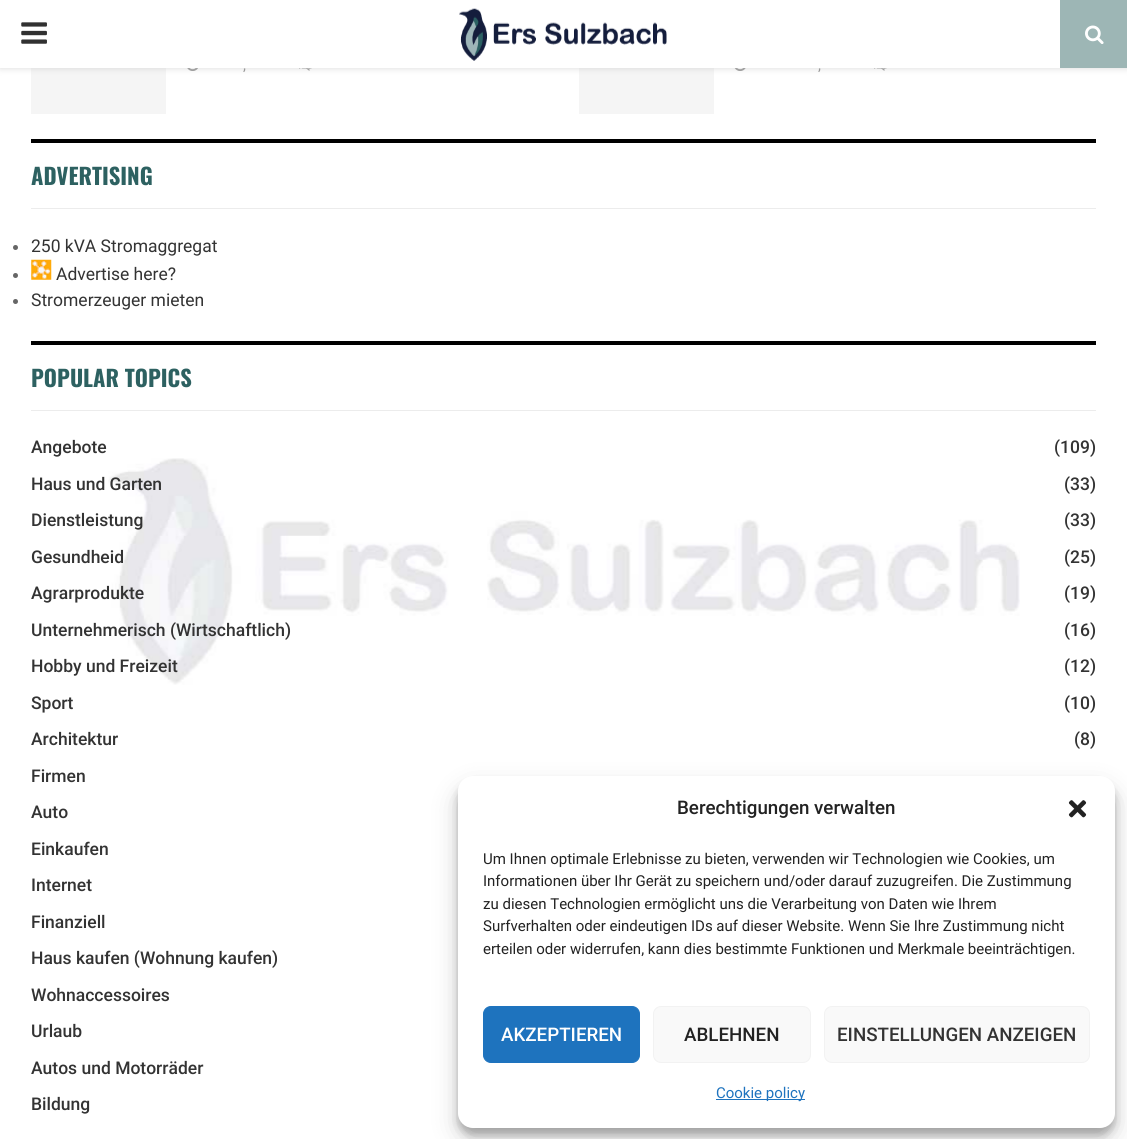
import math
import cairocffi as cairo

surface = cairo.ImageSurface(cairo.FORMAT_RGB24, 1127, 1139)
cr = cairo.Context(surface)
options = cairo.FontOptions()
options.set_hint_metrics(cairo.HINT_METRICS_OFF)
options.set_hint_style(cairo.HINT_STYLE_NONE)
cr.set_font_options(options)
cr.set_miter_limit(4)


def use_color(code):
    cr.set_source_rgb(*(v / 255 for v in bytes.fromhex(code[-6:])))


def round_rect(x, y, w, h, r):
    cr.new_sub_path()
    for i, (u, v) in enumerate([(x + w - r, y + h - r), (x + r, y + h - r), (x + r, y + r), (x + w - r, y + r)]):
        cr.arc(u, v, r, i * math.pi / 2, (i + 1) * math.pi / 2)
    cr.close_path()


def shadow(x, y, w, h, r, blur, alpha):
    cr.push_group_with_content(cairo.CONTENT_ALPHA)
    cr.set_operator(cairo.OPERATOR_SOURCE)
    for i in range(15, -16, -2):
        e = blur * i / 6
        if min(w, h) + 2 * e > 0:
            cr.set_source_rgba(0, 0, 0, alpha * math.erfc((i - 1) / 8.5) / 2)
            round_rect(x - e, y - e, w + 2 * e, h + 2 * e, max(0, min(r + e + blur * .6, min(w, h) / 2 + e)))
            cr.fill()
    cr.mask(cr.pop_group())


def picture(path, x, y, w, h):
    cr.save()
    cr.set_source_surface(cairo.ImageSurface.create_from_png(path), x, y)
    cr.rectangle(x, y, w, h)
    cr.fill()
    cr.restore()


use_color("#ffffff")
cr.paint()
picture("img1.png", 108, 458, 912, 227)
use_color("#f5f5f5")
cr.rectangle(31, 68, 135, 46)
cr.fill()
picture("img5.png", 187, 68, 11, 3)
picture("img6.png", 299, 68, 13, 3)
cr.rectangle(579, 68, 135, 46)
cr.fill()
picture("img7.png", 734, 68, 12, 3)
picture("img6.png", 874, 68, 13, 3)
use_color("#bebebe")
shadow(0, 1, 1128, 68, 0, 3, 0.46)
use_color("#ffffff")
cr.rectangle(0, 0, 1060, 68)
cr.fill()
picture("img2.png", 21, 22, 26, 22)
picture("img3.png", 459, 8, 208, 53)
use_color("#9db6b5")
cr.rectangle(1060, 0, 67, 68)
cr.fill()
picture("img4.png", 1085, 25, 19, 19)
cr.select_font_face("Roboto")
cr.set_font_size(15)
use_color("#999999")
cr.move_to(243, 70)
cr.show_text(",")
cr.move_to(818, 70)
cr.show_text(",")
use_color("#ececec")
cr.rectangle(31, 208, 1065, 1)
cr.fill()
use_color("#000000")
cr.rectangle(31, 139, 1065, 4)
cr.fill()
cr.select_font_face("Oswald", cairo.FONT_SLANT_NORMAL, cairo.FONT_WEIGHT_BOLD)
cr.set_font_size(22.5)
use_color("#2d6161")
cr.move_to(31, 185)
cr.show_text("ADVERTISING")
use_color("#666666")
cr.new_path()
cr.arc(15.5, 247.5, 2.5, 0, 2 * math.pi)
cr.fill()
cr.select_font_face("Roboto")
cr.set_font_size(17.5)
use_color("#333333")
cr.move_to(31, 252)
cr.show_text("250 kVA Stromaggregat")
use_color("#666666")
cr.new_path()
cr.arc(15.5, 275.5, 2.5, 0, 2 * math.pi)
cr.fill()
picture("img8.png", 31, 259, 21, 21)
use_color("#333333")
cr.move_to(56, 280)
cr.show_text("Advertise here?")
use_color("#666666")
cr.new_path()
cr.arc(15.5, 301.5, 2.5, 0, 2 * math.pi)
cr.fill()
use_color("#333333")
cr.move_to(31, 306)
cr.show_text("Stromerzeuger mieten")
use_color("#ececec")
cr.rectangle(31, 410, 1065, 1)
cr.fill()
use_color("#000000")
cr.rectangle(31, 341, 1065, 4)
cr.fill()
cr.select_font_face("Oswald", cairo.FONT_SLANT_NORMAL, cairo.FONT_WEIGHT_BOLD)
cr.set_font_size(22.5)
use_color("#2d6161")
cr.move_to(31, 387)
cr.show_text("POPULAR TOPICS")
cr.select_font_face("Roboto Medium")
cr.set_font_size(17.5)
use_color("#333333")
cr.move_to(31, 453)
cr.show_text("Angebote")
cr.move_to(1054, 453)
cr.show_text("(109)")
cr.move_to(31, 490)
cr.show_text("Haus und Garten")
cr.move_to(1064, 490)
cr.show_text("(33)")
cr.move_to(31, 526)
cr.show_text("Dienstleistung")
cr.move_to(1064, 526)
cr.show_text("(33)")
cr.move_to(31, 563)
cr.show_text("Gesundheid")
cr.move_to(1064, 563)
cr.show_text("(25)")
cr.move_to(31, 599)
cr.show_text("Agrarprodukte")
cr.move_to(1064, 599)
cr.show_text("(19)")
cr.move_to(31, 636)
cr.show_text("Unternehmerisch (Wirtschaftlich)")
cr.move_to(1064, 636)
cr.show_text("(16)")
cr.move_to(31, 672)
cr.show_text("Hobby und Freizeit")
cr.move_to(1064, 672)
cr.show_text("(12)")
cr.move_to(31, 709)
cr.show_text("Sport")
cr.move_to(1064, 709)
cr.show_text("(10)")
cr.move_to(31, 745)
cr.show_text("Architektur")
cr.move_to(1074, 745)
cr.show_text("(8)")
cr.move_to(31, 782)
cr.show_text("Firmen")
cr.move_to(31, 818)
cr.show_text("Auto")
cr.move_to(31, 855)
cr.show_text("Einkaufen")
cr.move_to(31, 891)
cr.show_text("Internet")
cr.move_to(31, 928)
cr.show_text("Finanziell")
cr.move_to(31, 964)
cr.show_text("Haus kaufen (Wohnung kaufen)")
cr.move_to(31, 1001)
cr.show_text("Wohnaccessoires")
cr.move_to(31, 1037)
cr.show_text("Urlaub")
cr.move_to(31, 1074)
cr.show_text("Autos und Motorräder")
cr.move_to(31, 1110)
cr.show_text("Bildung")
use_color("#000000")
shadow(458, 784, 657, 351, 15, 4, 0.23)
shadow(458, 789, 657, 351, 15, 12.5, 0.19)
use_color("#ffffff")
round_rect(458, 776, 657, 352, 15)
cr.fill()
cr.set_font_size(18.75)
use_color("#222222")
cr.move_to(677, 814)
cr.show_text("Berechtigungen verwalten")
picture("img9.png", 1068, 800, 19, 18)
cr.select_font_face("Roboto")
cr.set_font_size(15)
cr.move_to(483, 864)
cr.show_text("Um Ihnen optimale Erlebnisse zu bieten, verwenden wir Technologien wie Cookies, um")
cr.move_to(483, 886)
cr.show_text("Informationen über Ihr Gerät zu speichern und/oder darauf zuzugreifen. Die Zustimmung")
cr.move_to(483, 909)
cr.show_text("zu diesen Technologien ermöglicht uns die Verarbeitung von Daten wie Ihrem")
cr.move_to(483, 931)
cr.show_text("Surfverhalten oder eindeutigen IDs auf dieser Website. Wenn Sie Ihre Zustimmung nicht")
cr.move_to(483, 954)
cr.show_text("erteilen oder widerrufen, kann dies bestimmte Funktionen und Merkmale beeinträchtigen.")
use_color("#1e73be")
round_rect(483.5, 1006.5, 156, 56, 7.5)
cr.fill_preserve()
cr.set_line_width(1)
cr.stroke()
cr.select_font_face("Roboto Medium")
cr.set_font_size(18.75)
use_color("#ffffff")
cr.move_to(501, 1041)
cr.show_text("AKZEPTIEREN")
use_color("#f9f9f9")
round_rect(653.5, 1006.5, 157, 56, 7.5)
cr.fill_preserve()
use_color("#f2f2f2")
cr.stroke()
use_color("#222222")
cr.move_to(684, 1041)
cr.show_text("ABLEHNEN")
use_color("#f9f9f9")
round_rect(824.5, 1006.5, 265, 56, 7.5)
cr.fill_preserve()
use_color("#f2f2f2")
cr.stroke()
use_color("#333333")
cr.move_to(837, 1041)
cr.show_text("EINSTELLUNGEN ANZEIGEN")
use_color("#1e73be")
cr.rectangle(716, 1099, 89, 1)
cr.fill()
cr.select_font_face("Roboto")
cr.set_font_size(15)
cr.move_to(716, 1098)
cr.show_text("Cookie policy")
surface.write_to_png("result.png")
